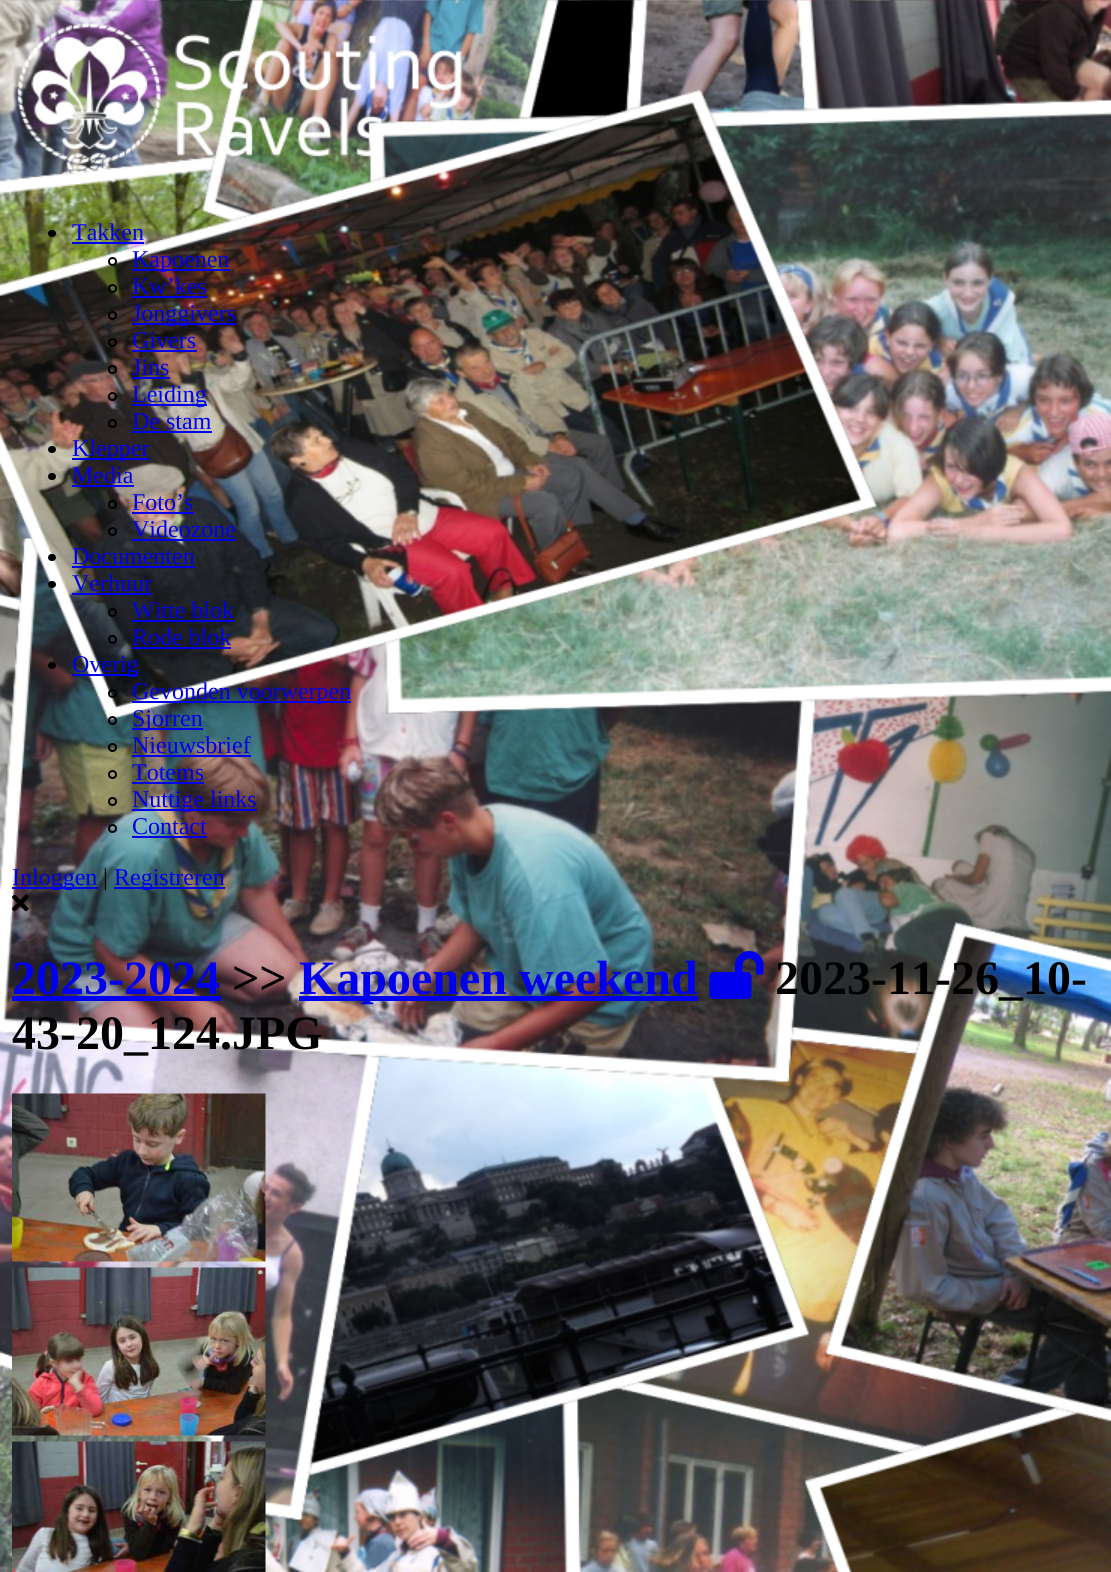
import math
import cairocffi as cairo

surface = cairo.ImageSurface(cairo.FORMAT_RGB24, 1111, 1572)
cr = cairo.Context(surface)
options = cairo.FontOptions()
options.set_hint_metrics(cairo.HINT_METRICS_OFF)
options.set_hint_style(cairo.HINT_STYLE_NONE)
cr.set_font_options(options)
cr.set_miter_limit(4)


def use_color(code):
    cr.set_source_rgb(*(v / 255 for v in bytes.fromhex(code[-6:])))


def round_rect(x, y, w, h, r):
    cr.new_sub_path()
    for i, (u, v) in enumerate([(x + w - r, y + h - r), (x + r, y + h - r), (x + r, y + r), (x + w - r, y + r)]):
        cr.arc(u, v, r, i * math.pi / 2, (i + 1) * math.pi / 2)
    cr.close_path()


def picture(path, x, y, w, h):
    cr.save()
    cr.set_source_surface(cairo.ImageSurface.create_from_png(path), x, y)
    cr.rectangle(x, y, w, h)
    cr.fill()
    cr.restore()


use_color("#ffffff")
cr.paint()
picture("img1.png", 0, 0, 1111, 1572)
picture("img2.png", 16, 22, 447, 162)
use_color("#000000")
round_rect(48, 230, 8, 7, 3.5)
cr.fill()
cr.select_font_face("Liberation Serif")
cr.set_font_size(24)
use_color("#0000ee")
cr.move_to(72, 240)
cr.show_text("Takken")
cr.rectangle(72, 242, 72, 2)
cr.fill()
cr.arc(112.5, 261.5, 3.5, 0, 2 * math.pi)
use_color("#000000")
cr.stroke()
use_color("#0000ee")
cr.rectangle(132, 269, 98, 2)
cr.fill()
cr.move_to(132, 267)
cr.show_text("Kapoenen")
cr.new_path()
cr.arc(112.5, 288.5, 3.5, 0, 2 * math.pi)
use_color("#000000")
cr.stroke()
use_color("#0000ee")
cr.move_to(132, 294)
cr.show_text("Kw’kes")
cr.rectangle(132, 296, 75, 2)
cr.fill()
cr.arc(112.5, 315.5, 3.5, 0, 2 * math.pi)
use_color("#000000")
cr.stroke()
use_color("#0000ee")
cr.rectangle(132, 323, 104, 2)
cr.fill()
cr.move_to(132, 321)
cr.show_text("Jonggivers")
cr.new_path()
cr.arc(112.5, 342.5, 3.5, 0, 2 * math.pi)
use_color("#000000")
cr.stroke()
use_color("#0000ee")
cr.move_to(132, 348)
cr.show_text("Givers")
cr.rectangle(132, 350, 65, 2)
cr.fill()
cr.arc(112.5, 369.5, 3.5, 0, 2 * math.pi)
use_color("#000000")
cr.stroke()
use_color("#0000ee")
cr.move_to(132, 375)
cr.show_text("Jins")
cr.rectangle(132, 377, 38, 2)
cr.fill()
cr.arc(112.5, 396.5, 3.5, 0, 2 * math.pi)
use_color("#000000")
cr.stroke()
use_color("#0000ee")
cr.rectangle(132, 404, 75, 2)
cr.fill()
cr.move_to(132, 402)
cr.show_text("Leiding")
cr.new_path()
cr.arc(112.5, 423.5, 3.5, 0, 2 * math.pi)
use_color("#000000")
cr.stroke()
use_color("#0000ee")
cr.move_to(132, 429)
cr.show_text("De stam")
cr.rectangle(132, 431, 80, 2)
cr.fill()
use_color("#000000")
round_rect(48, 446, 8, 7, 3.5)
cr.fill()
use_color("#0000ee")
cr.rectangle(72, 458, 78, 2)
cr.fill()
cr.move_to(72, 456)
cr.show_text("Klepper")
use_color("#000000")
round_rect(48, 473, 8, 7, 3.5)
cr.fill()
use_color("#0000ee")
cr.move_to(72, 483)
cr.show_text("Media")
cr.rectangle(72, 485, 62, 2)
cr.fill()
cr.arc(112.5, 504.5, 3.5, 0, 2 * math.pi)
use_color("#000000")
cr.stroke()
use_color("#0000ee")
cr.move_to(132, 510)
cr.show_text("Foto’s")
cr.rectangle(132, 512, 62, 2)
cr.fill()
cr.arc(112.5, 531.5, 3.5, 0, 2 * math.pi)
use_color("#000000")
cr.stroke()
use_color("#0000ee")
cr.move_to(132, 537)
cr.show_text("Videozone")
cr.rectangle(132, 539, 104, 2)
cr.fill()
use_color("#000000")
round_rect(48, 554, 8, 7, 3.5)
cr.fill()
use_color("#0000ee")
cr.move_to(72, 564)
cr.show_text("Documenten")
cr.rectangle(72, 566, 123, 2)
cr.fill()
use_color("#000000")
round_rect(48, 581, 8, 7, 3.5)
cr.fill()
use_color("#0000ee")
cr.move_to(72, 591)
cr.show_text("Verhuur")
cr.rectangle(72, 593, 80, 2)
cr.fill()
cr.arc(112.5, 612.5, 3.5, 0, 2 * math.pi)
use_color("#000000")
cr.stroke()
use_color("#0000ee")
cr.move_to(132, 618)
cr.show_text("Witte blok")
cr.rectangle(132, 620, 102, 2)
cr.fill()
cr.arc(112.5, 639.5, 3.5, 0, 2 * math.pi)
use_color("#000000")
cr.stroke()
use_color("#0000ee")
cr.move_to(132, 645)
cr.show_text("Rode blok")
cr.rectangle(132, 647, 99, 2)
cr.fill()
use_color("#000000")
round_rect(48, 662, 8, 7, 3.5)
cr.fill()
use_color("#0000ee")
cr.rectangle(72, 674, 66, 2)
cr.fill()
cr.move_to(72, 672)
cr.show_text("Overig")
cr.new_path()
cr.arc(112.5, 693.5, 3.5, 0, 2 * math.pi)
use_color("#000000")
cr.stroke()
use_color("#0000ee")
cr.rectangle(132, 701, 219, 2)
cr.fill()
cr.move_to(132, 699)
cr.show_text("Gevonden voorwerpen")
cr.new_path()
cr.arc(112.5, 720.5, 3.5, 0, 2 * math.pi)
use_color("#000000")
cr.stroke()
use_color("#0000ee")
cr.rectangle(132, 728, 71, 2)
cr.fill()
cr.move_to(132, 726)
cr.show_text("Sjorren")
cr.new_path()
cr.arc(112.5, 747.5, 3.5, 0, 2 * math.pi)
use_color("#000000")
cr.stroke()
use_color("#0000ee")
cr.move_to(132, 753)
cr.show_text("Nieuwsbrief")
cr.rectangle(132, 755, 119, 2)
cr.fill()
cr.arc(112.5, 774.5, 3.5, 0, 2 * math.pi)
use_color("#000000")
cr.stroke()
use_color("#0000ee")
cr.move_to(132, 780)
cr.show_text("Totems")
cr.rectangle(132, 782, 72, 2)
cr.fill()
cr.arc(112.5, 801.5, 3.5, 0, 2 * math.pi)
use_color("#000000")
cr.stroke()
use_color("#0000ee")
cr.rectangle(132, 809, 125, 2)
cr.fill()
cr.move_to(132, 807)
cr.show_text("Nuttige links")
cr.new_path()
cr.arc(112.5, 828.5, 3.5, 0, 2 * math.pi)
use_color("#000000")
cr.stroke()
use_color("#0000ee")
cr.move_to(132, 834)
cr.show_text("Contact")
cr.rectangle(132, 836, 75, 2)
cr.fill()
cr.rectangle(12, 887, 86, 2)
cr.fill()
cr.move_to(12, 885)
cr.show_text("Inloggen")
use_color("#000000")
cr.move_to(103, 885)
cr.show_text("|")
use_color("#0000ee")
cr.rectangle(114, 887, 111, 2)
cr.fill()
cr.move_to(114, 885)
cr.show_text("Registreren")
picture("img3.png", 12, 894, 17, 18)
cr.rectangle(299, 996, 399, 5)
cr.fill()
cr.select_font_face("Liberation Serif", cairo.FONT_SLANT_NORMAL, cairo.FONT_WEIGHT_BOLD)
cr.set_font_size(48)
cr.move_to(299, 994)
cr.show_text("Kapoenen weekend")
picture("img4.png", 709, 951, 55, 48)
use_color("#000000")
cr.move_to(775, 994)
cr.show_text("2023-11-26_10-")
cr.move_to(12, 1049)
cr.show_text("43-20_124.JPG")
use_color("#0000ee")
cr.move_to(12, 994)
cr.show_text("2023-2024")
cr.rectangle(12, 996, 209, 5)
cr.fill()
use_color("#000000")
cr.move_to(232, 994)
cr.show_text(">>")
picture("img5.png", 12, 1093, 254, 169)
picture("img6.png", 12, 1267, 254, 169)
picture("img7.png", 12, 1441, 254, 131)
surface.write_to_png("result.png")
